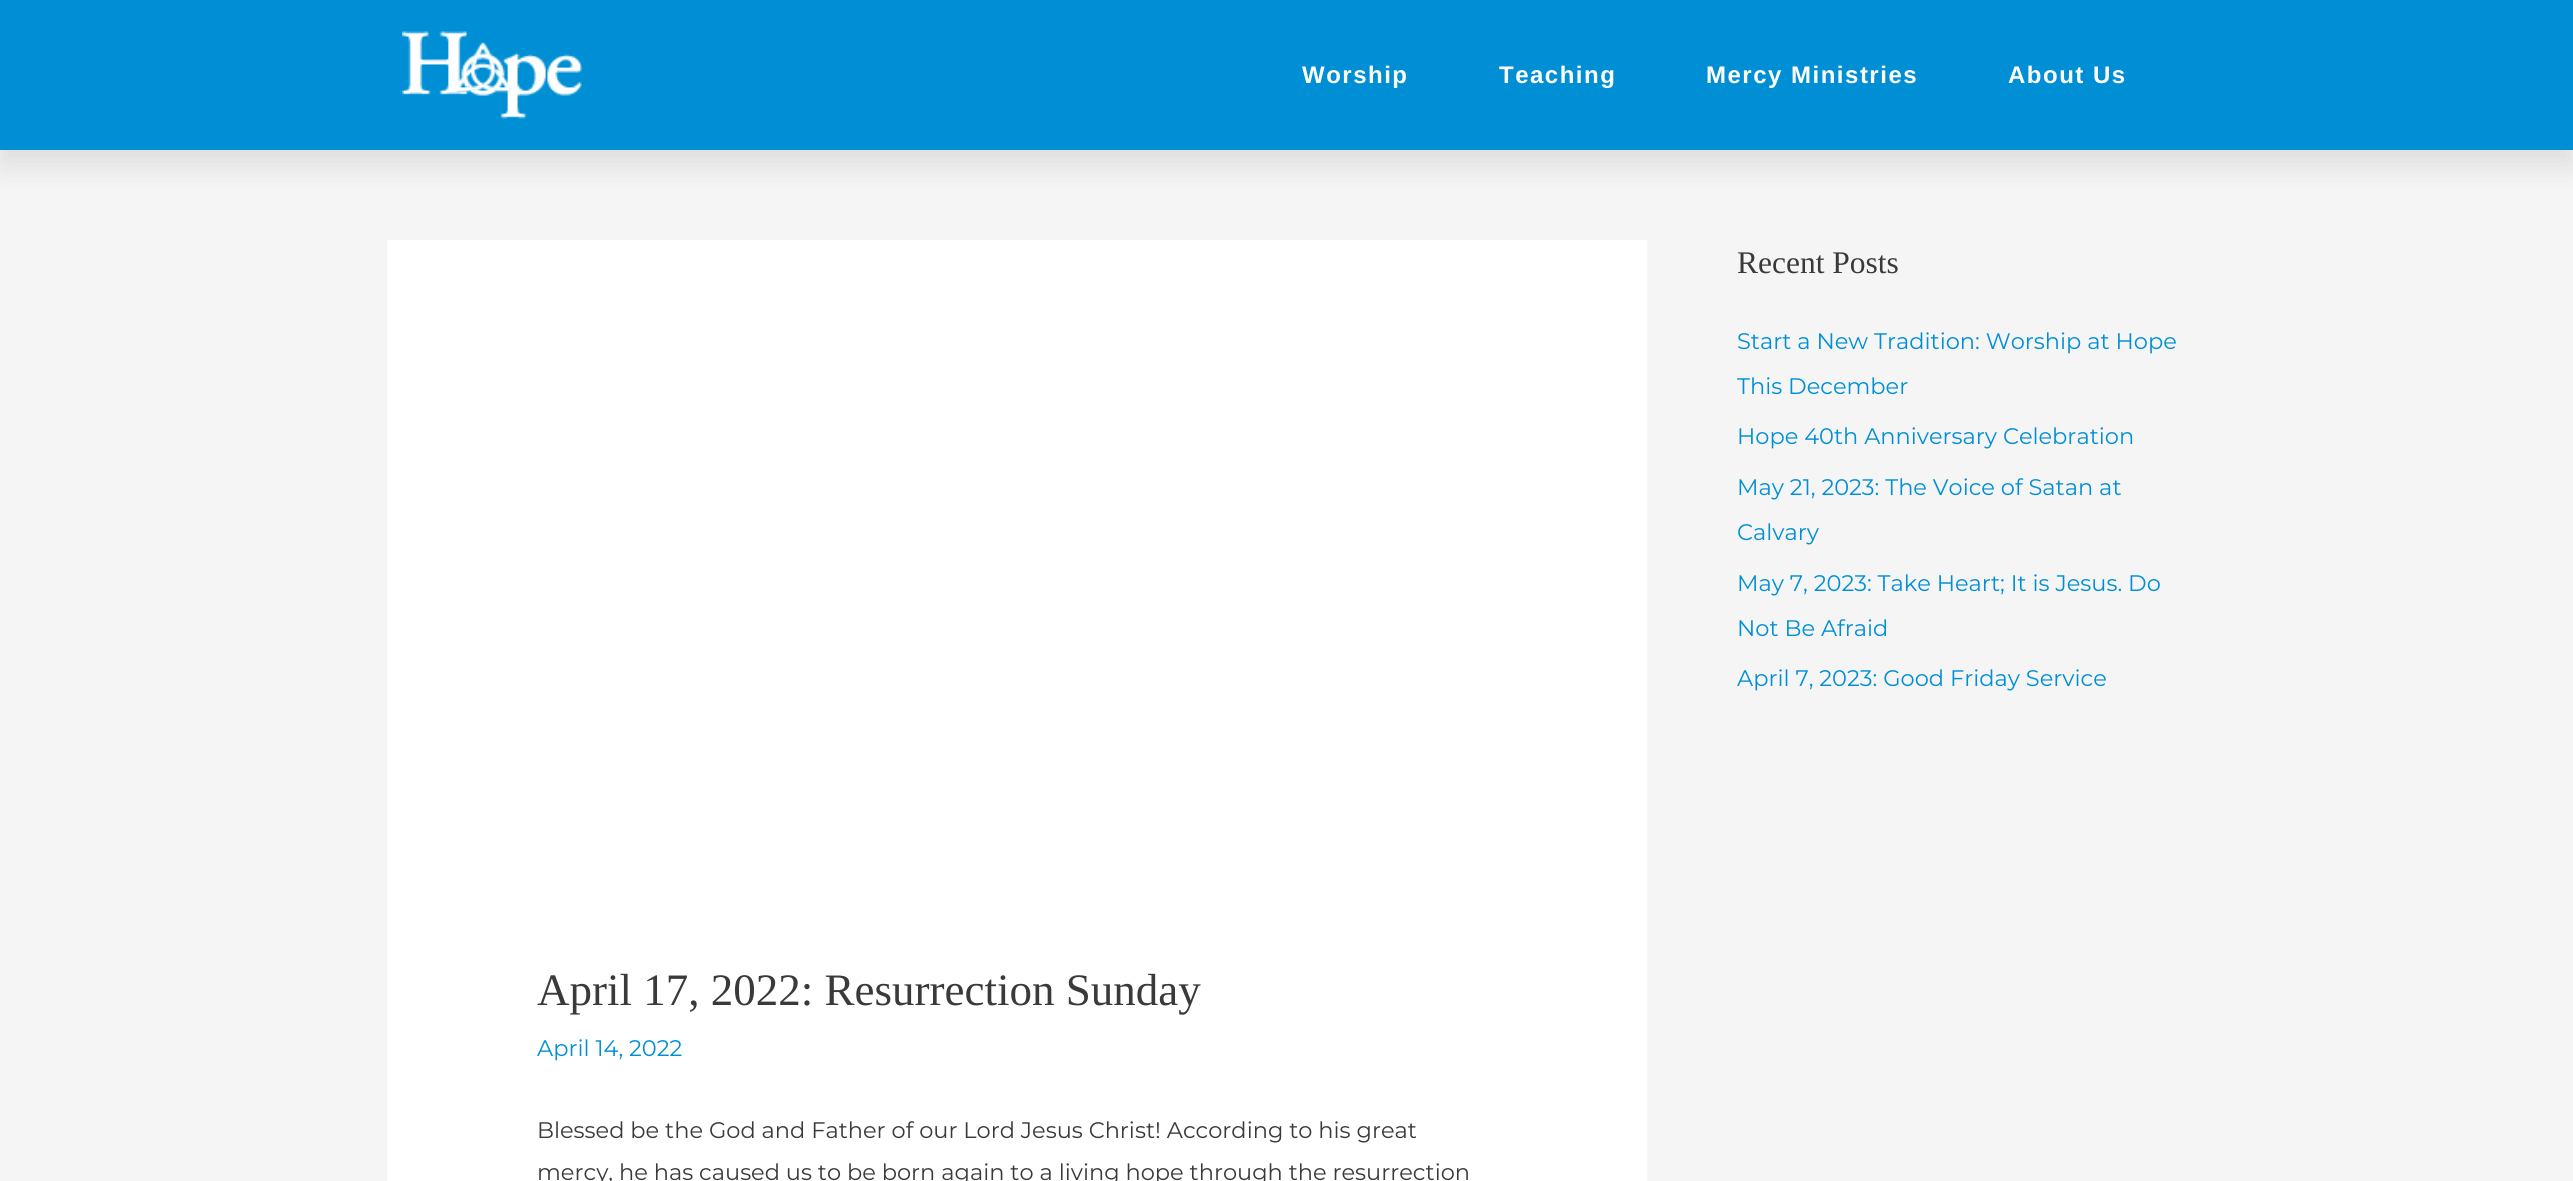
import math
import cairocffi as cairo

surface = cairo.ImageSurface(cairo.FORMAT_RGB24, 2573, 1181)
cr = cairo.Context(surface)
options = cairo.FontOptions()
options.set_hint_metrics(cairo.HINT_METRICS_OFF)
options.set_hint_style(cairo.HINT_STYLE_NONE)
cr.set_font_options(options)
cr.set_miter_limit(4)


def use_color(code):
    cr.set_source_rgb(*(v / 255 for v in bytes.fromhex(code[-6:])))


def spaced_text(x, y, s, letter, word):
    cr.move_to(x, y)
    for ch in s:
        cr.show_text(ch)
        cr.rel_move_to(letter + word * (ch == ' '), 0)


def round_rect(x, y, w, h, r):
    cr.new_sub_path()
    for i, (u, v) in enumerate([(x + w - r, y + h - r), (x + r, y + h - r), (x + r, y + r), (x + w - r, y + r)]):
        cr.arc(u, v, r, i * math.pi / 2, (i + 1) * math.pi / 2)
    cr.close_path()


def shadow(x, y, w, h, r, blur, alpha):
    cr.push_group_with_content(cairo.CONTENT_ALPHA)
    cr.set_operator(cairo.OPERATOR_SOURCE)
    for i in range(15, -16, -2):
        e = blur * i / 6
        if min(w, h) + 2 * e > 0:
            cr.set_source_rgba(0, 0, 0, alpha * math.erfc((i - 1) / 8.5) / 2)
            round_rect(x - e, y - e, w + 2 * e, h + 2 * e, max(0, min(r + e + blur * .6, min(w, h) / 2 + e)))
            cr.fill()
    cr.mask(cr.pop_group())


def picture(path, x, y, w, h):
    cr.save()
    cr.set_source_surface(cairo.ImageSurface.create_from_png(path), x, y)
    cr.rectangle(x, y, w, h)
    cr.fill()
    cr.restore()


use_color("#f5f5f5")
cr.paint()
use_color("#000000")
shadow(0, 15, 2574, 150, 0, 15, 0.1)
use_color("#008fd5")
cr.rectangle(0, 0, 2573, 150)
cr.fill()
picture("img1.png", 402, 31, 180, 88)
cr.select_font_face("Liberation Sans", cairo.FONT_SLANT_NORMAL, cairo.FONT_WEIGHT_BOLD)
cr.set_font_size(24)
use_color("#ffffff")
spaced_text(1302, 83, "Worship", 1.5, 0)
spaced_text(1499, 83, "Teaching", 1.5, 0)
spaced_text(1706, 83, "Mercy Ministries", 1.5, 0)
spaced_text(2008, 83, "About Us", 1.5, 0)
cr.select_font_face("Liberation Serif")
cr.set_font_size(31.5)
use_color("#3a3a3a")
cr.move_to(1737, 273)
cr.show_text("Recent Posts")
cr.select_font_face("Montserrat Thin")
cr.set_font_size(22.5)
use_color("#008fd5")
cr.move_to(1737, 349)
cr.show_text("Start a New Tradition: Worship at Hope")
cr.move_to(1737, 394)
cr.show_text("This December")
cr.move_to(1737, 444)
cr.show_text("Hope 40th Anniversary Celebration")
cr.move_to(1737, 495)
cr.show_text("May 21, 2023: The Voice of Satan at")
cr.move_to(1737, 540)
cr.show_text("Calvary")
cr.move_to(1737, 591)
cr.show_text("May 7, 2023: Take Heart; It is Jesus. Do")
cr.move_to(1737, 636)
cr.show_text("Not Be Afraid")
cr.move_to(1737, 686)
cr.show_text("April 7, 2023: Good Friday Service")
use_color("#ffffff")
cr.rectangle(387, 240, 1260, 941)
cr.fill()
cr.select_font_face("Liberation Serif")
cr.set_font_size(45)
use_color("#3a3a3a")
cr.move_to(537, 1005)
cr.show_text("April 17, 2022: Resurrection Sunday")
cr.select_font_face("Montserrat Thin")
cr.set_font_size(22.5)
use_color("#008fd5")
cr.move_to(537, 1056)
cr.show_text("April 14, 2022")
use_color("#3a3a3a")
cr.move_to(537, 1138)
cr.show_text("Blessed be the God and Father of our Lord Jesus Christ! According to his great")
cr.move_to(537, 1180)
cr.show_text("mercy, he has caused us to be born again to a living hope through the resurrection")
surface.write_to_png("result.png")
